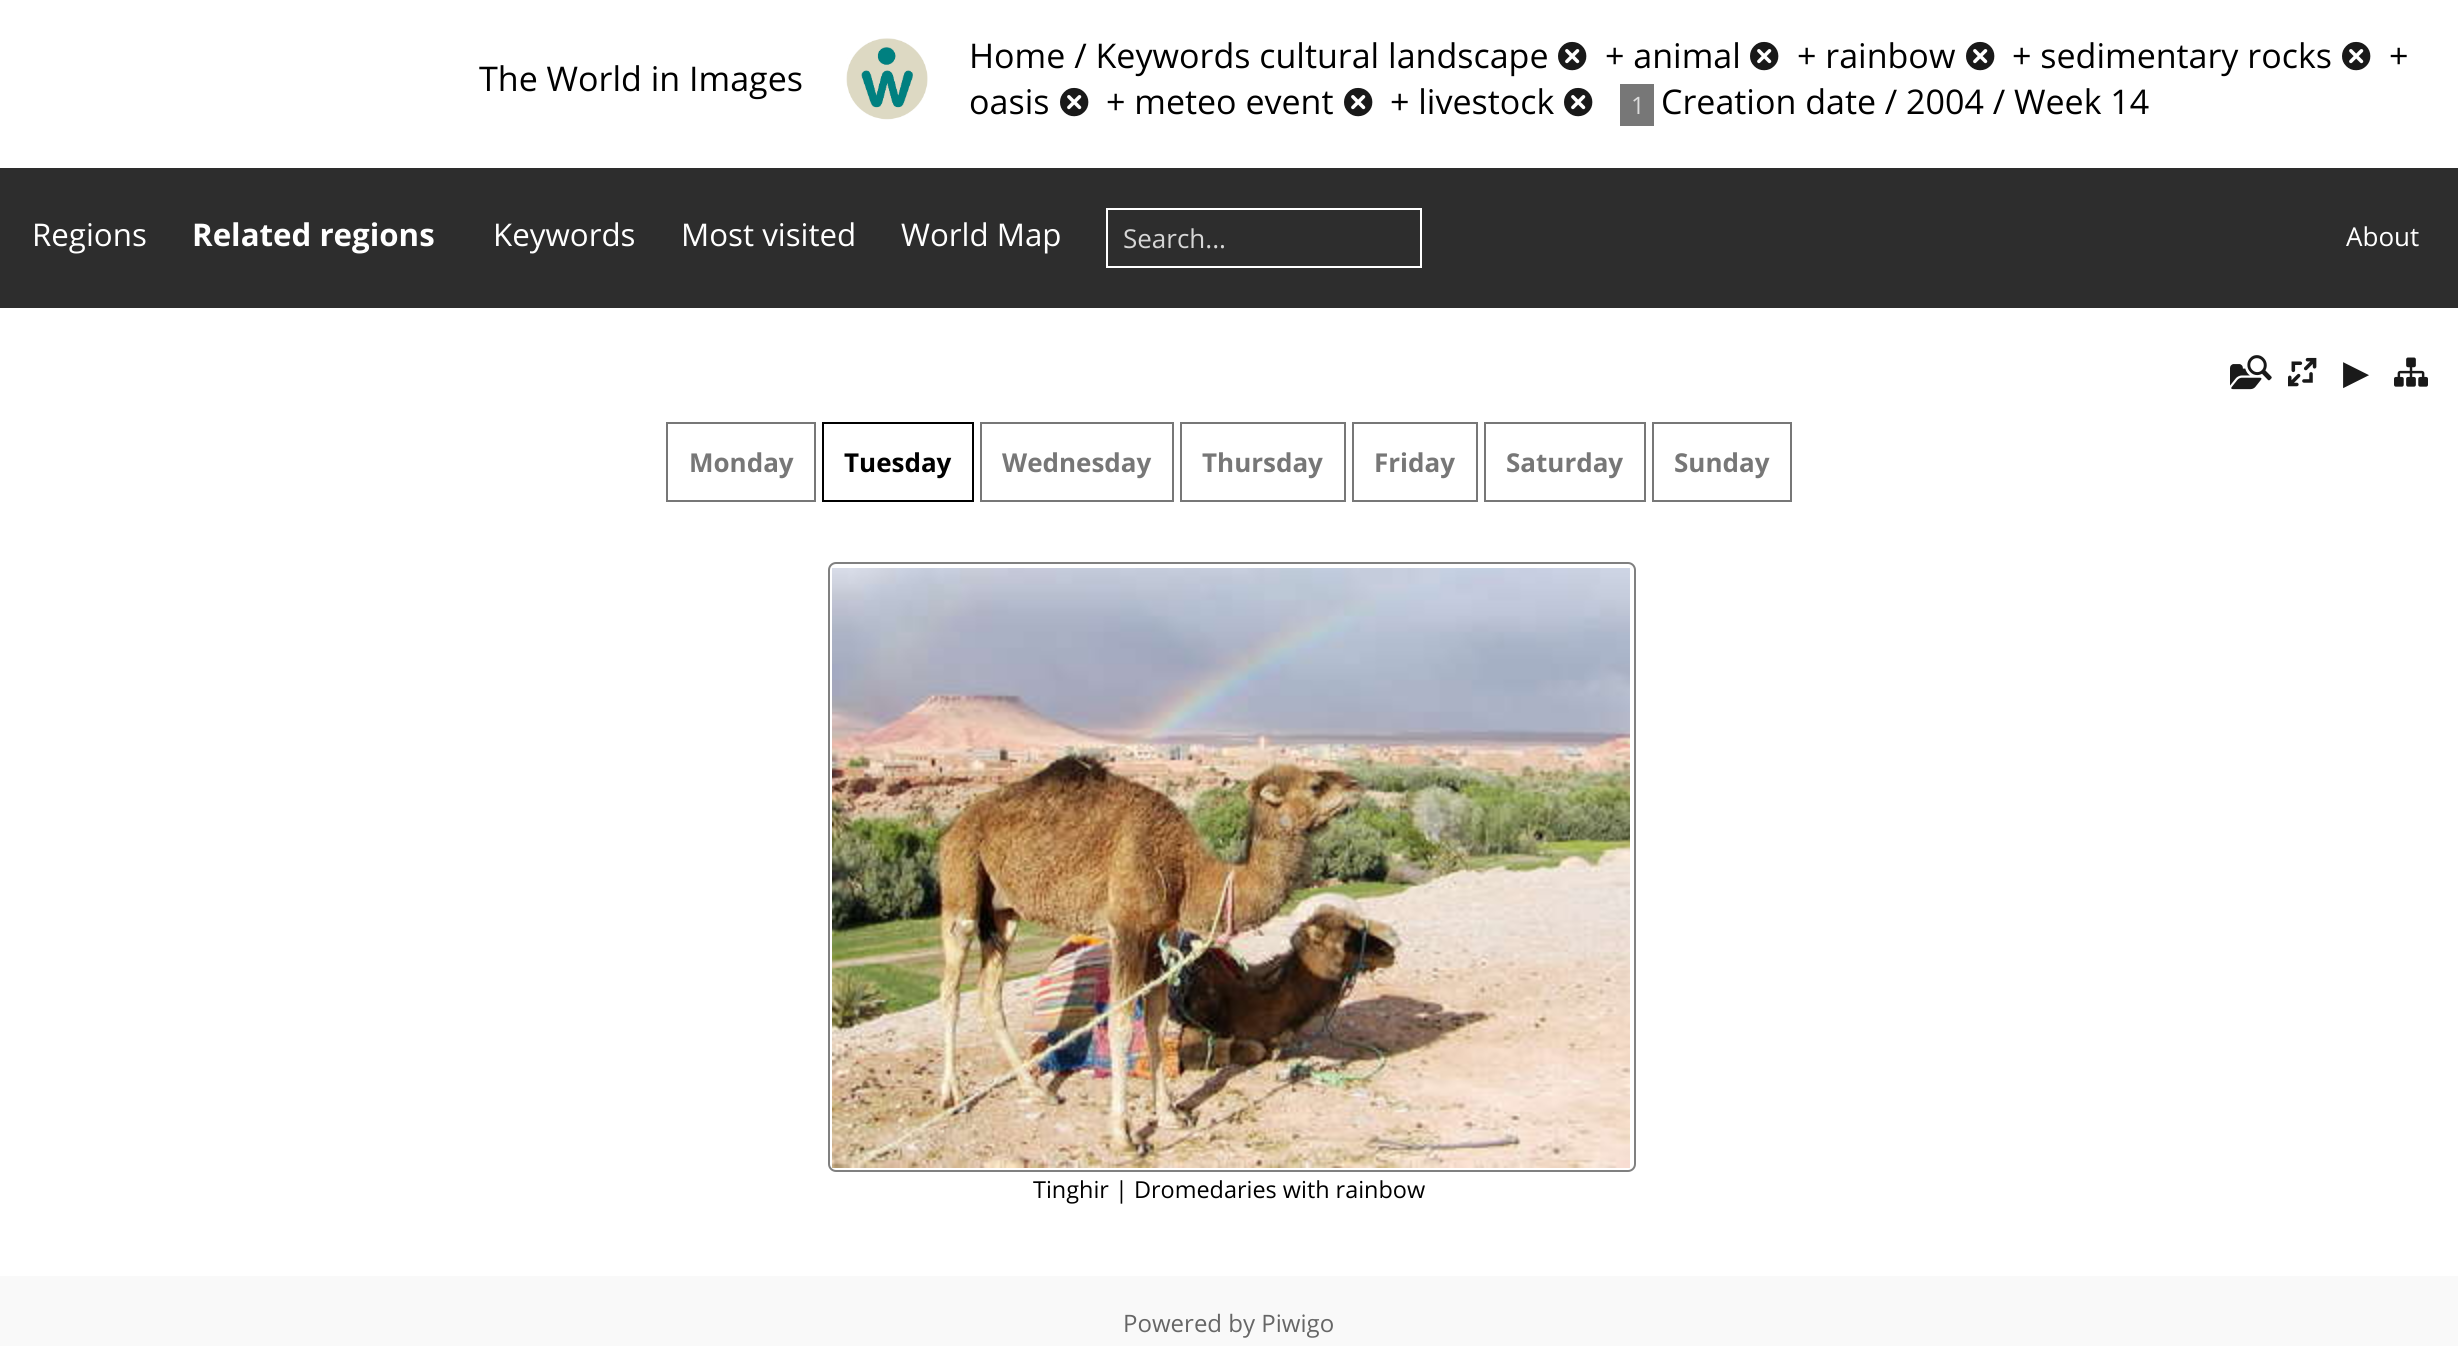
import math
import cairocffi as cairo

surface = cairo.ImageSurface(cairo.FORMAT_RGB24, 2458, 1346)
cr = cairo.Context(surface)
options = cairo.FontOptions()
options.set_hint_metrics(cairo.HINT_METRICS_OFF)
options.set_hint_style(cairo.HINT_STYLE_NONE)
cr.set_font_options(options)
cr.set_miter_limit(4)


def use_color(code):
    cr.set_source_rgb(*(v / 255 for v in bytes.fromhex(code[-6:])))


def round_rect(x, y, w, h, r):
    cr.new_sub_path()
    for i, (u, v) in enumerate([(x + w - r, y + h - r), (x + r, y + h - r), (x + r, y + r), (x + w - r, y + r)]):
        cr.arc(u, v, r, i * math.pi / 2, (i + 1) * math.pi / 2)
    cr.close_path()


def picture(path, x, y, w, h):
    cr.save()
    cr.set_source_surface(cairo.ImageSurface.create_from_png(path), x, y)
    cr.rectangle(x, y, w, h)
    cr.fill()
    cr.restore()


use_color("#ffffff")
cr.paint()
cr.select_font_face("Open Sans")
cr.set_font_size(34)
use_color("#000000")
cr.move_to(479, 91)
cr.show_text("The World in Images")
picture("img1.png", 846, 38, 82, 82)
cr.move_to(969, 68)
cr.show_text("Home / Keywords cultural landscape")
picture("img2.png", 1558, 41, 29, 30)
cr.move_to(1605, 68)
cr.show_text("+ animal")
picture("img2.png", 1750, 41, 29, 30)
cr.move_to(1797, 68)
cr.show_text("+ rainbow")
picture("img2.png", 1966, 41, 29, 30)
cr.move_to(2012, 68)
cr.show_text("+ sedimentary rocks")
picture("img2.png", 2342, 41, 29, 30)
cr.move_to(2389, 68)
cr.show_text("+")
cr.move_to(969, 114)
cr.show_text("oasis")
picture("img2.png", 1060, 87, 29, 30)
cr.move_to(1106, 114)
cr.show_text("+ meteo event")
picture("img2.png", 1344, 87, 29, 30)
cr.move_to(1390, 114)
cr.show_text("+ livestock")
picture("img2.png", 1564, 87, 29, 30)
use_color("#777777")
cr.rectangle(1620, 84, 34, 42)
cr.fill()
cr.set_font_size(24)
use_color("#dddddd")
cr.move_to(1631, 114)
cr.show_text("1")
cr.set_font_size(34)
use_color("#000000")
cr.move_to(1661, 114)
cr.show_text("Creation date / 2004 / Week 14")
use_color("#2d2d2d")
cr.rectangle(0, 168, 2458, 140)
cr.fill()
cr.set_font_size(31.25)
use_color("#ffffff")
cr.move_to(32, 246)
cr.show_text("Regions")
cr.select_font_face("Open Sans", cairo.FONT_SLANT_NORMAL, cairo.FONT_WEIGHT_BOLD)
cr.move_to(192, 246)
cr.show_text("Related regions")
cr.select_font_face("Open Sans")
cr.move_to(493, 246)
cr.show_text("Keywords")
cr.move_to(681, 246)
cr.show_text("Most visited")
cr.move_to(901, 246)
cr.show_text("World Map")
cr.rectangle(1107, 209, 314, 58)
cr.stroke()
cr.set_font_size(26)
use_color("#d6d6d6")
cr.move_to(1123, 248)
cr.show_text("Search...")
use_color("#ffffff")
cr.move_to(2346, 246)
cr.show_text("About")
picture("img3.png", 2230, 355, 42, 35)
picture("img4.png", 2288, 357, 29, 30)
cr.select_font_face("DejaVu Sans")
cr.set_font_size(34)
use_color("#1a1a1a")
cr.move_to(2343, 384)
cr.show_text("▶")
picture("img5.png", 2394, 357, 34, 30)
cr.rectangle(667, 423, 148, 78)
use_color("#777777")
cr.stroke()
cr.select_font_face("Open Sans", cairo.FONT_SLANT_NORMAL, cairo.FONT_WEIGHT_BOLD)
cr.set_font_size(26)
cr.move_to(689, 472)
cr.show_text("Monday")
cr.rectangle(823, 423, 150, 78)
use_color("#000000")
cr.stroke()
cr.move_to(844, 472)
cr.show_text("Tuesday")
cr.rectangle(981, 423, 192, 78)
use_color("#777777")
cr.stroke()
cr.move_to(1002, 472)
cr.show_text("Wednesday")
cr.rectangle(1181, 423, 164, 78)
cr.stroke()
cr.move_to(1202, 472)
cr.show_text("Thursday")
cr.rectangle(1353, 423, 124, 78)
cr.stroke()
cr.move_to(1374, 472)
cr.show_text("Friday")
cr.rectangle(1485, 423, 160, 78)
cr.stroke()
cr.move_to(1506, 472)
cr.show_text("Saturday")
cr.rectangle(1653, 423, 138, 78)
cr.stroke()
cr.move_to(1674, 472)
cr.show_text("Sunday")
round_rect(829, 563, 806, 608, 7)
use_color("#808080")
cr.stroke()
picture("img6.png", 832, 568, 798, 600)
cr.select_font_face("Open Sans")
cr.set_font_size(23.4)
use_color("#000000")
cr.move_to(1033, 1198)
cr.show_text("Tinghir | Dromedaries with rainbow")
use_color("#f9f9f9")
cr.rectangle(0, 1276, 2458, 70)
cr.fill()
cr.set_font_size(24)
use_color("#666666")
cr.move_to(1123, 1332)
cr.show_text("Powered by Piwigo")
surface.write_to_png("result.png")
